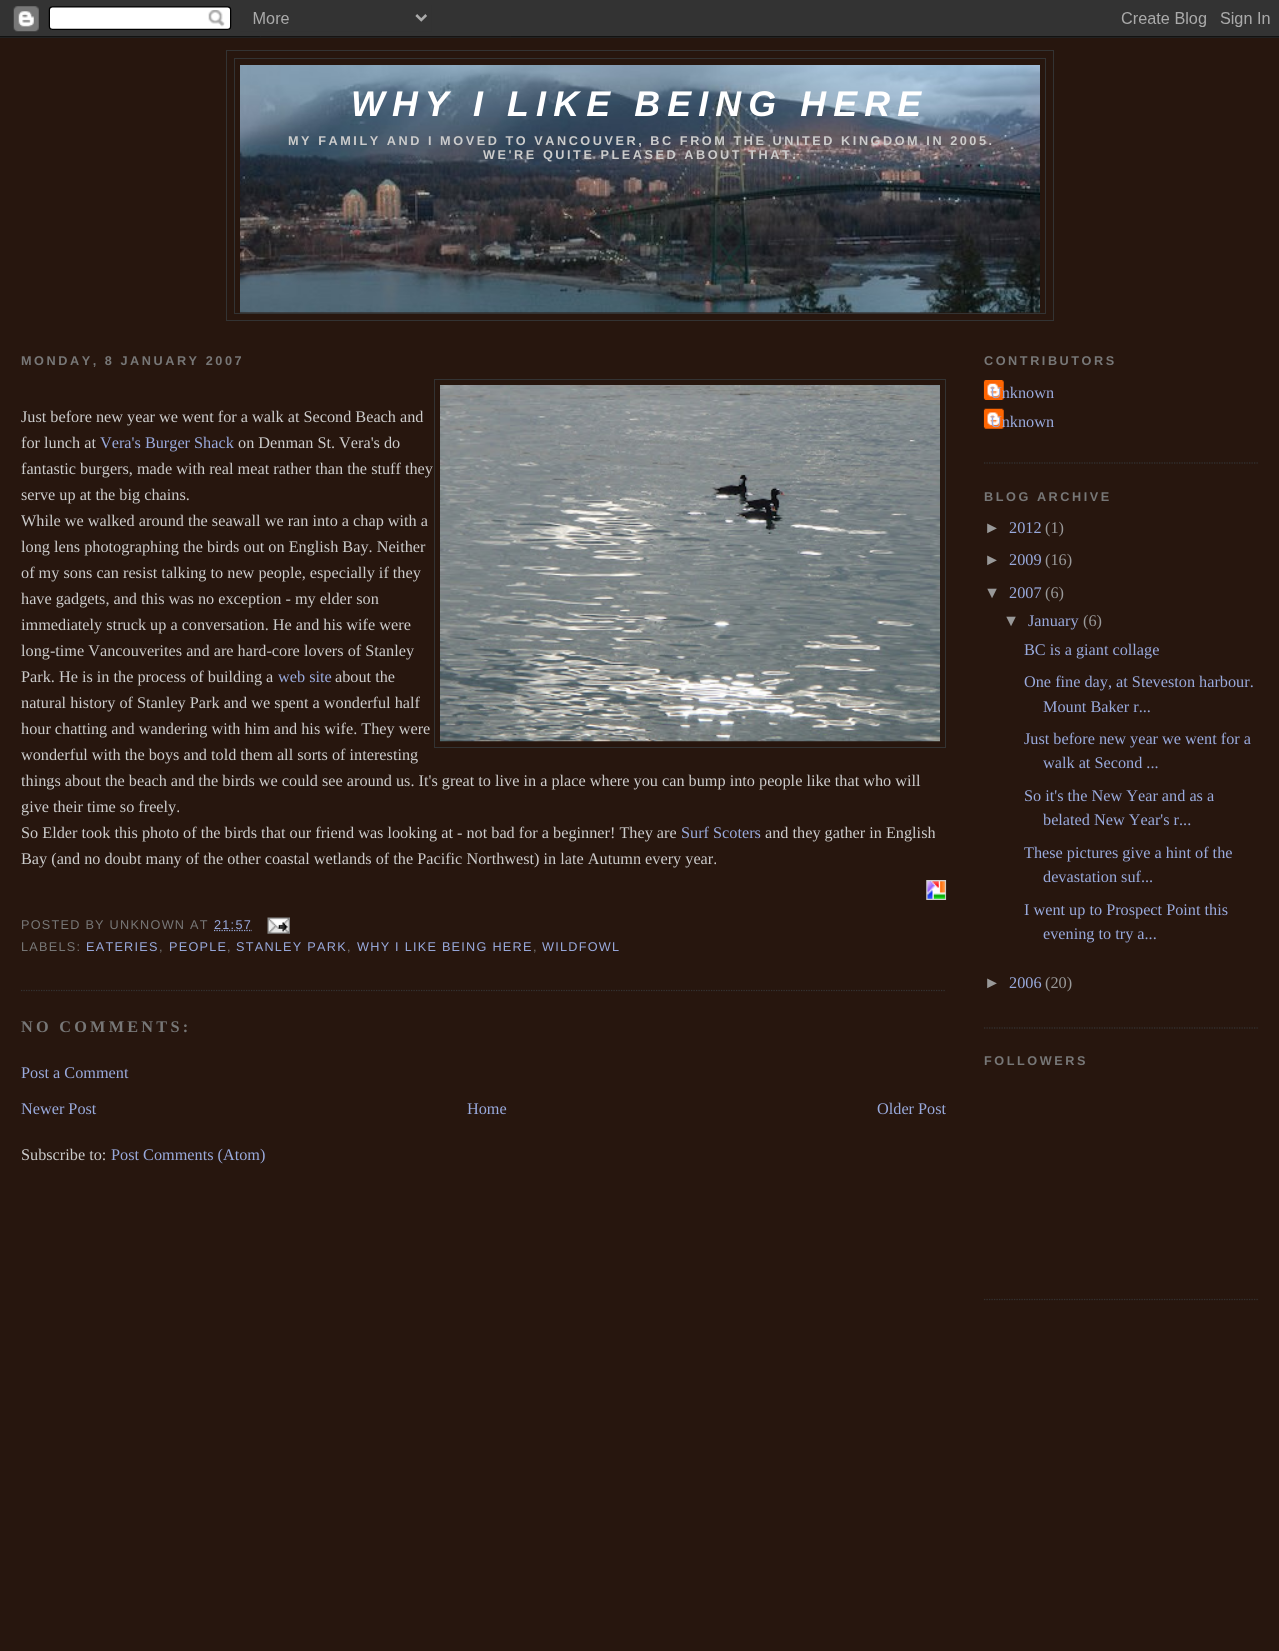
import math
import cairocffi as cairo

surface = cairo.ImageSurface(cairo.FORMAT_RGB24, 1279, 1651)
cr = cairo.Context(surface)
options = cairo.FontOptions()
options.set_hint_metrics(cairo.HINT_METRICS_OFF)
options.set_hint_style(cairo.HINT_STYLE_NONE)
cr.set_font_options(options)
cr.set_miter_limit(4)


def use_color(code):
    cr.set_source_rgb(*(v / 255 for v in bytes.fromhex(code[-6:])))


def spaced_text(x, y, s, letter, word):
    cr.move_to(x, y)
    for ch in s:
        cr.show_text(ch)
        cr.rel_move_to(letter + word * (ch == ' '), 0)


def picture(path, x, y, w, h):
    cr.save()
    cr.set_source_surface(cairo.ImageSurface.create_from_png(path), x, y)
    cr.rectangle(x, y, w, h)
    cr.fill()
    cr.restore()


use_color("#27160e")
cr.paint()
picture("img1.png", 0, 0, 1279, 38)
cr.rectangle(226.5, 50.5, 827, 270)
use_color("#333333")
cr.set_line_width(1)
cr.stroke()
cr.rectangle(234.5, 58.5, 811, 255)
cr.stroke()
picture("img2.png", 240, 65, 800, 248)
cr.select_font_face("Liberation Sans", cairo.FONT_SLANT_ITALIC, cairo.FONT_WEIGHT_BOLD)
cr.set_font_size(35.75)
use_color("#ffffff")
spaced_text(351, 116, "WHY I LIKE BEING HERE", 7.15, 0)
cr.select_font_face("Liberation Sans", cairo.FONT_SLANT_NORMAL, cairo.FONT_WEIGHT_BOLD)
cr.set_font_size(12.68)
use_color("#cccccc")
spaced_text(288, 145, "MY FAMILY AND I MOVED TO VANCOUVER, BC FROM THE UNITED KINGDOM IN 2005.", 2.55, 0)
spaced_text(483, 159, "WE'RE QUITE PLEASED ABOUT THAT.", 2.55, 0)
use_color("#777777")
spaced_text(21, 365, "MONDAY, 8 JANUARY 2007", 2.55, 0)
cr.new_path()
cr.move_to(21, 990.5)
cr.line_to(946, 990.5)
use_color("#333333")
cr.set_line_width(1.2)
cr.set_dash([1.25, 1.25])
cr.stroke()
cr.select_font_face("Liberation Serif")
cr.set_font_size(16.25)
use_color("#cccccc")
cr.move_to(21, 422)
cr.show_text("Just before new year we went for a walk at Second Beach and")
cr.rectangle(434.5, 379.5, 511, 368)
use_color("#333333")
cr.set_line_width(1)
cr.set_dash([])
cr.stroke()
picture("img3.png", 440, 385, 500, 357)
use_color("#cccccc")
cr.move_to(21, 448)
cr.show_text("for lunch at")
use_color("#99aadd")
cr.move_to(100, 448)
cr.show_text("Vera's Burger Shack")
use_color("#cccccc")
cr.move_to(238, 448)
cr.show_text("on Denman St. Vera's do")
cr.move_to(21, 474)
cr.show_text("fantastic burgers, made with real meat rather than the stuff they")
cr.move_to(21, 500)
cr.show_text("serve up at the big chains.")
cr.move_to(21, 526)
cr.show_text("While we walked around the seawall we ran into a chap with a")
cr.move_to(21, 552)
cr.show_text("long lens photographing the birds out on English Bay. Neither")
cr.move_to(21, 578)
cr.show_text("of my sons can resist talking to new people, especially if they")
cr.move_to(21, 604)
cr.show_text("have gadgets, and this was no exception - my elder son")
cr.move_to(21, 630)
cr.show_text("immediately struck up a conversation. He and his wife were")
cr.move_to(21, 656)
cr.show_text("long-time Vancouverites and are hard-core lovers of Stanley")
cr.move_to(21, 682)
cr.show_text("Park. He is in the process of building a")
use_color("#99aadd")
cr.move_to(278, 682)
cr.show_text("web site")
use_color("#cccccc")
cr.move_to(335, 682)
cr.show_text("about the")
cr.move_to(21, 708)
cr.show_text("natural history of Stanley Park and we spent a wonderful half")
cr.move_to(21, 734)
cr.show_text("hour chatting and wandering with him and his wife. They were")
cr.move_to(21, 760)
cr.show_text("wonderful with the boys and told them all sorts of interesting")
cr.move_to(21, 786)
cr.show_text("things about the beach and the birds we could see around us. It's great to live in a place where you can bump into people like that who will")
cr.move_to(21, 812)
cr.show_text("give their time so freely.")
cr.move_to(21, 838)
cr.show_text("So Elder took this photo of the birds that our friend was looking at - not bad for a beginner! They are")
use_color("#99aadd")
cr.move_to(681, 838)
cr.show_text("Surf Scoters")
use_color("#cccccc")
cr.move_to(765, 838)
cr.show_text("and they gather in English")
cr.move_to(21, 864)
cr.show_text("Bay (and no doubt many of the other coastal wetlands of the Pacific Northwest) in late Autumn every year.")
picture("img4.png", 926, 880, 21, 20)
cr.select_font_face("Liberation Sans")
cr.set_font_size(12.68)
use_color("#777777")
spaced_text(21, 929, "POSTED BY UNKNOWN AT", 1.25, 0)
cr.new_path()
cr.move_to(214, 930.5)
cr.line_to(252, 930.5)
use_color("#99aadd")
cr.set_line_width(1.2)
cr.set_dash([1.25, 1.25])
cr.stroke()
spaced_text(214, 929, "21:57", 1.25, 0)
picture("img5.png", 267, 917, 23, 17)
use_color("#777777")
spaced_text(21, 951, "LABELS:", 1.25, 0)
use_color("#99aadd")
spaced_text(86, 951, "EATERIES", 1.25, 0)
use_color("#777777")
spaced_text(159, 951, ",", 1.25, 0)
use_color("#99aadd")
spaced_text(169, 951, "PEOPLE", 1.25, 0)
use_color("#777777")
spaced_text(227, 951, ",", 1.25, 0)
use_color("#99aadd")
spaced_text(236, 951, "STANLEY PARK", 1.25, 0)
use_color("#777777")
spaced_text(347, 951, ",", 1.25, 0)
use_color("#99aadd")
spaced_text(357, 951, "WHY I LIKE BEING HERE", 1.25, 0)
use_color("#777777")
spaced_text(533, 951, ",", 1.25, 0)
use_color("#99aadd")
spaced_text(542, 951, "WILDFOWL", 1.25, 0)
cr.select_font_face("Liberation Serif", cairo.FONT_SLANT_NORMAL, cairo.FONT_WEIGHT_BOLD)
cr.set_font_size(16.25)
use_color("#777777")
spaced_text(21, 1032, "NO COMMENTS:", 3.25, 0)
cr.select_font_face("Liberation Serif")
use_color("#99aadd")
cr.move_to(21, 1078)
cr.show_text("Post a Comment")
cr.move_to(21, 1114)
cr.show_text("Newer Post")
cr.move_to(467, 1114)
cr.show_text("Home")
cr.move_to(877, 1114)
cr.show_text("Older Post")
use_color("#cccccc")
cr.move_to(21, 1160)
cr.show_text("Subscribe to:")
use_color("#99aadd")
cr.move_to(111, 1160)
cr.show_text("Post Comments (Atom)")
cr.new_path()
cr.move_to(984, 463)
cr.line_to(1259, 463)
use_color("#333333")
cr.stroke()
cr.select_font_face("Liberation Sans", cairo.FONT_SLANT_NORMAL, cairo.FONT_WEIGHT_BOLD)
cr.set_font_size(12.68)
use_color("#777777")
spaced_text(984, 365, "CONTRIBUTORS", 2.55, 0)
picture("img6.png", 983, 380, 21, 20)
cr.select_font_face("Liberation Serif")
cr.set_font_size(16.25)
use_color("#99aadd")
cr.move_to(990, 398)
cr.show_text("Unknown")
picture("img7.png", 983, 408, 21, 21)
cr.move_to(990, 427)
cr.show_text("Unknown")
cr.new_path()
cr.move_to(984, 1028)
cr.line_to(1259, 1028)
use_color("#333333")
cr.stroke()
cr.select_font_face("Liberation Sans", cairo.FONT_SLANT_NORMAL, cairo.FONT_WEIGHT_BOLD)
cr.set_font_size(12.68)
use_color("#777777")
spaced_text(984, 501, "BLOG ARCHIVE", 2.55, 0)
cr.select_font_face("Liberation Sans")
cr.set_font_size(16.25)
use_color("#999999")
cr.move_to(984, 533)
cr.show_text("►")
cr.select_font_face("Liberation Serif")
use_color("#99aadd")
cr.move_to(1009, 533)
cr.show_text("2012")
use_color("#999999")
cr.move_to(1045, 533)
cr.show_text("(1)")
cr.select_font_face("Liberation Sans")
cr.move_to(984, 565)
cr.show_text("►")
cr.select_font_face("Liberation Serif")
use_color("#99aadd")
cr.move_to(1009, 565)
cr.show_text("2009")
use_color("#999999")
cr.move_to(1045, 565)
cr.show_text("(16)")
cr.select_font_face("Liberation Sans")
cr.move_to(984, 598)
cr.show_text("▼")
cr.select_font_face("Liberation Serif")
use_color("#99aadd")
cr.move_to(1009, 598)
cr.show_text("2007")
use_color("#999999")
cr.move_to(1045, 598)
cr.show_text("(6)")
cr.select_font_face("Liberation Sans")
cr.move_to(1003, 626)
cr.show_text("▼")
cr.select_font_face("Liberation Serif")
use_color("#99aadd")
cr.move_to(1028, 626)
cr.show_text("January")
use_color("#999999")
cr.move_to(1083, 626)
cr.show_text("(6)")
use_color("#99aadd")
cr.move_to(1024, 655)
cr.show_text("BC is a giant collage")
cr.move_to(1024, 687)
cr.show_text("One fine day, at Steveston harbour.")
cr.move_to(1043, 712)
cr.show_text("Mount Baker r...")
cr.move_to(1024, 744)
cr.show_text("Just before new year we went for a")
cr.move_to(1043, 768)
cr.show_text("walk at Second ...")
cr.move_to(1024, 801)
cr.show_text("So it's the New Year and as a")
cr.move_to(1043, 825)
cr.show_text("belated New Year's r...")
cr.move_to(1024, 858)
cr.show_text("These pictures give a hint of the")
cr.move_to(1043, 882)
cr.show_text("devastation suf...")
cr.move_to(1024, 915)
cr.show_text("I went up to Prospect Point this")
cr.move_to(1043, 939)
cr.show_text("evening to try a...")
cr.select_font_face("Liberation Sans")
use_color("#999999")
cr.move_to(984, 988)
cr.show_text("►")
cr.select_font_face("Liberation Serif")
use_color("#99aadd")
cr.move_to(1009, 988)
cr.show_text("2006")
use_color("#999999")
cr.move_to(1045, 988)
cr.show_text("(20)")
cr.new_path()
cr.move_to(984, 1299.5)
cr.line_to(1259, 1299.5)
use_color("#333333")
cr.stroke()
cr.select_font_face("Liberation Sans", cairo.FONT_SLANT_NORMAL, cairo.FONT_WEIGHT_BOLD)
cr.set_font_size(12.68)
use_color("#777777")
spaced_text(984, 1065, "FOLLOWERS", 2.55, 0)
surface.write_to_png("result.png")
